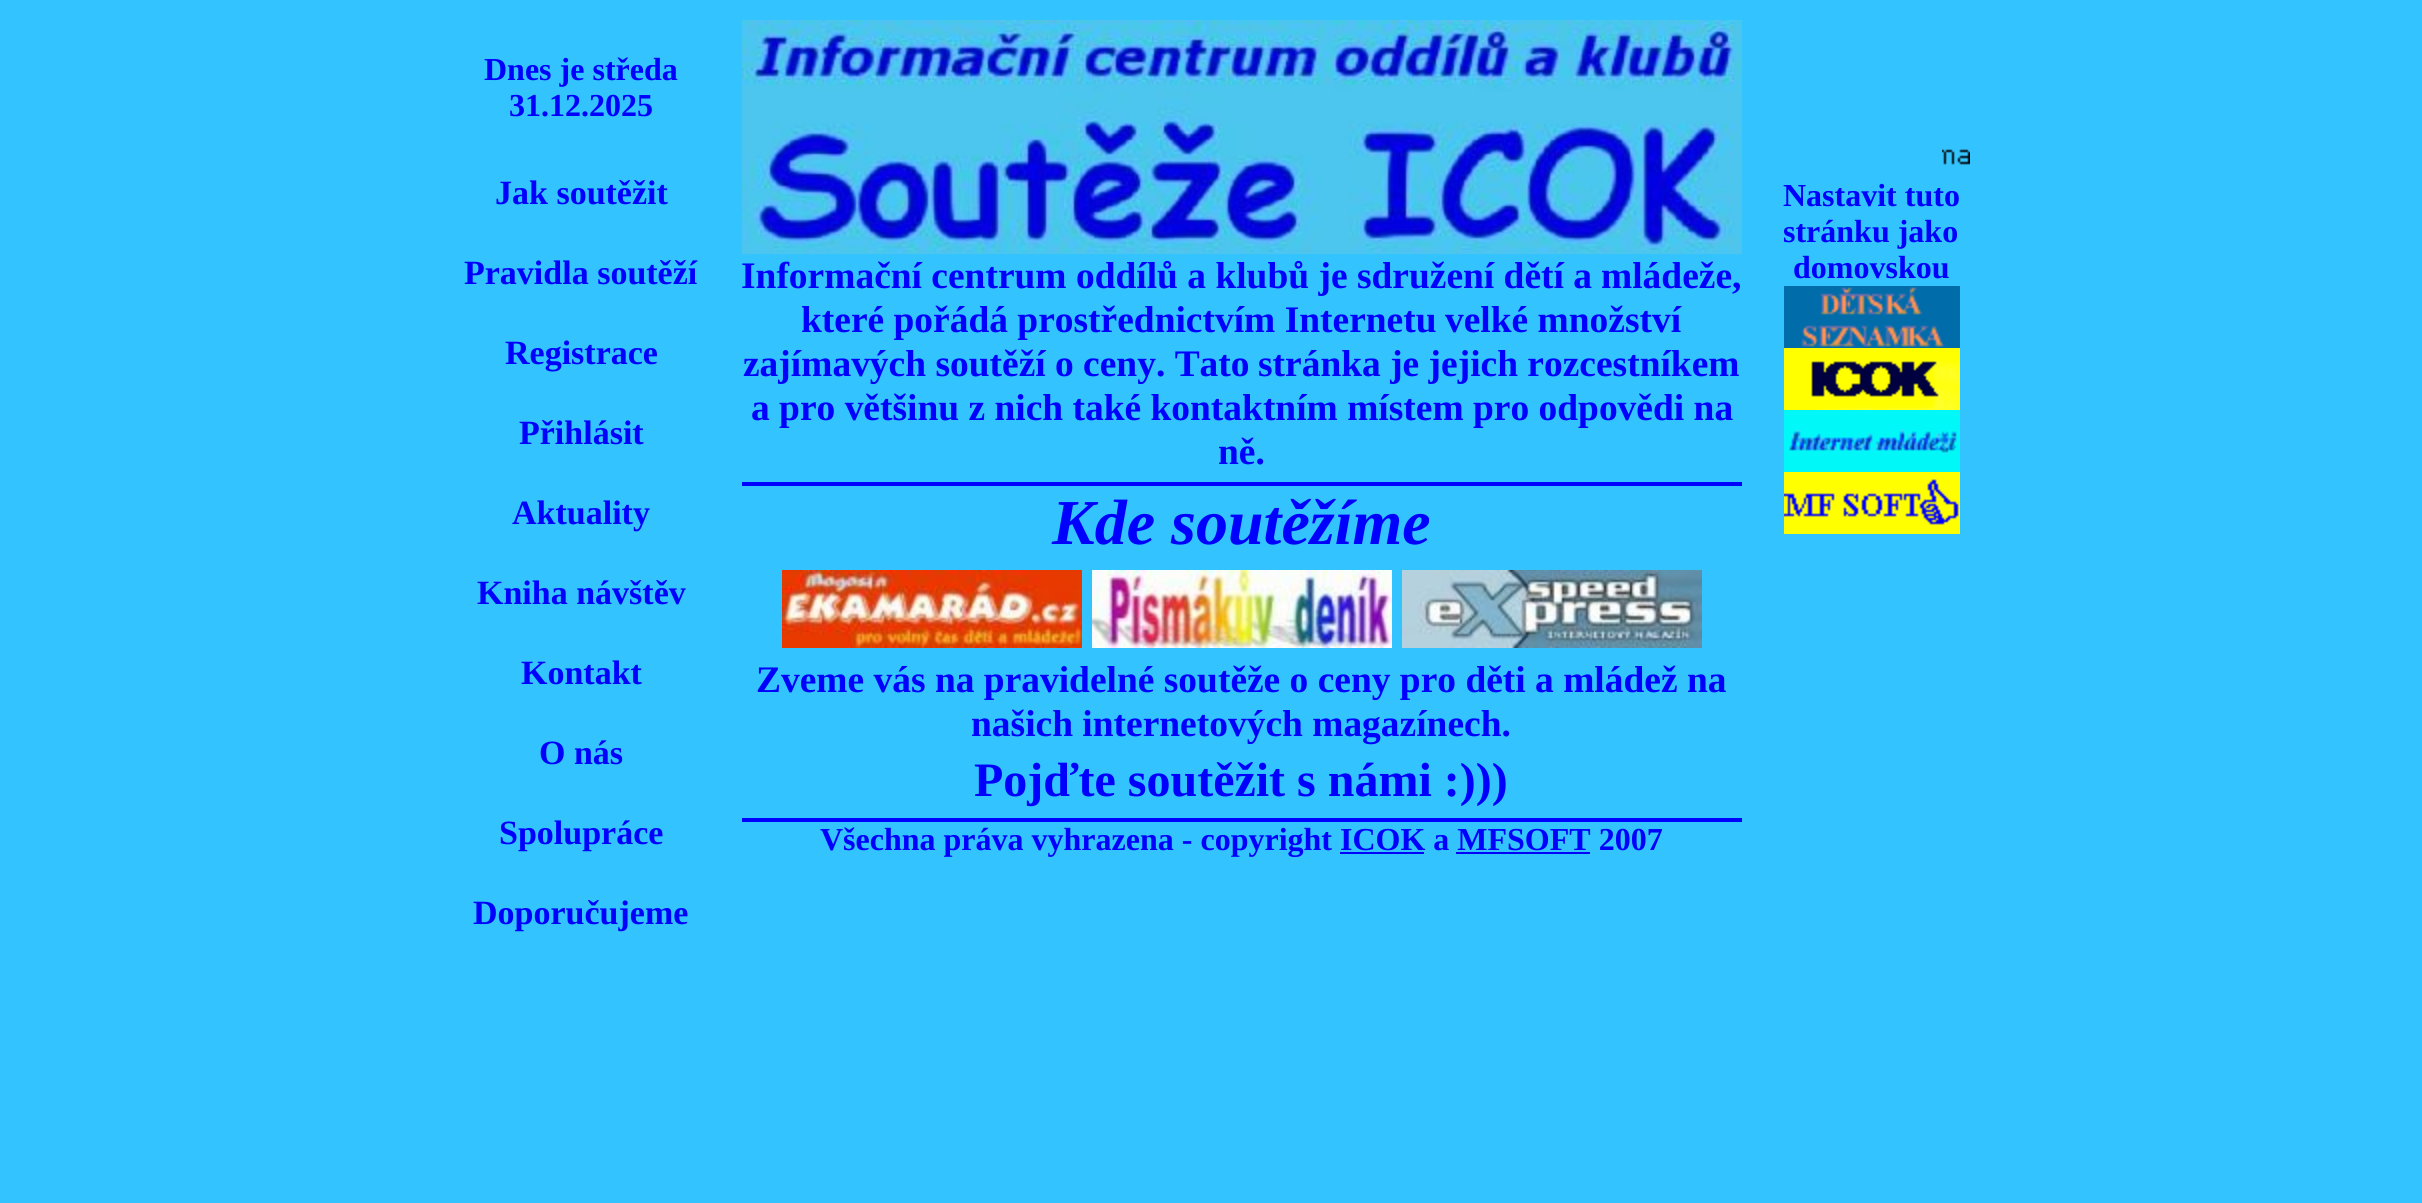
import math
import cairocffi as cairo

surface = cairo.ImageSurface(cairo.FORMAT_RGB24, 2422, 1203)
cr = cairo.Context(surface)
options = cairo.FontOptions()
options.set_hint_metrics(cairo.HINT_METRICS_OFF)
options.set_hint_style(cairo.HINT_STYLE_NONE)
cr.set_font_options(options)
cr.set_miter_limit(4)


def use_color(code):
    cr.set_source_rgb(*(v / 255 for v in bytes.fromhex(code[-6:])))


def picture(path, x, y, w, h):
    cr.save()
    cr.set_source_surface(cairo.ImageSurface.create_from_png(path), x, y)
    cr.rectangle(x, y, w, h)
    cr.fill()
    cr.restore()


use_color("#33c3ff")
cr.paint()
cr.select_font_face("Liberation Serif", cairo.FONT_SLANT_NORMAL, cairo.FONT_WEIGHT_BOLD)
cr.set_font_size(32)
use_color("#0000ff")
cr.move_to(484, 80)
cr.show_text("Dnes je středa")
cr.move_to(509, 116)
cr.show_text("31.12.2025")
cr.set_font_size(34)
cr.move_to(495, 204)
cr.show_text("Jak soutěžit")
cr.move_to(464, 284)
cr.show_text("Pravidla soutěží")
cr.move_to(505, 364)
cr.show_text("Registrace")
cr.move_to(519, 444)
cr.show_text("Přihlásit")
cr.move_to(512, 524)
cr.show_text("Aktuality")
cr.move_to(477, 604)
cr.show_text("Kniha návštěv")
cr.move_to(521, 684)
cr.show_text("Kontakt")
cr.move_to(539, 764)
cr.show_text("O nás")
cr.move_to(499, 844)
cr.show_text("Spolupráce")
cr.move_to(473, 924)
cr.show_text("Doporučujeme")
picture("img1.png", 1942, 149, 28, 16)
cr.set_font_size(32)
cr.move_to(1783, 206)
cr.show_text("Nastavit tuto")
cr.move_to(1783, 242)
cr.show_text("stránku jako")
cr.move_to(1793, 278)
cr.show_text("domovskou")
picture("img2.png", 1784, 286, 176, 62)
picture("img3.png", 1784, 348, 176, 62)
picture("img4.png", 1784, 410, 176, 62)
picture("img5.png", 1784, 472, 176, 62)
picture("img6.png", 742, 20, 1000, 72)
picture("img7.png", 742, 92, 1000, 162)
cr.set_font_size(37.45)
cr.move_to(741, 288)
cr.show_text("Informační centrum oddílů a klubů je sdružení dětí a")
cr.move_to(1601, 288)
cr.show_text("mládeže,")
cr.move_to(801, 332)
cr.show_text("které pořádá prostřednictvím Internetu")
cr.move_to(1445, 332)
cr.show_text("velké množství")
cr.move_to(743, 376)
cr.show_text("zajímavých soutěží o ceny. Tato")
cr.move_to(1258, 376)
cr.show_text("stránka je jejich rozcestníkem")
cr.move_to(751, 420)
cr.show_text("a pro většinu z nich také kontaktním místem pro odpovědi na")
cr.move_to(1218, 464)
cr.show_text("ně.")
cr.rectangle(742, 482, 1000, 4)
cr.fill()
cr.select_font_face("Liberation Serif", cairo.FONT_SLANT_ITALIC, cairo.FONT_WEIGHT_BOLD)
cr.set_font_size(64)
cr.move_to(1052, 544)
cr.show_text("Kde soutěžíme")
picture("img8.png", 782, 570, 300, 78)
picture("img9.png", 1092, 570, 300, 78)
picture("img10.png", 1402, 570, 300, 78)
cr.select_font_face("Liberation Serif", cairo.FONT_SLANT_NORMAL, cairo.FONT_WEIGHT_BOLD)
cr.set_font_size(37.45)
cr.move_to(756, 692)
cr.show_text("Zveme vás na pravidelné soutěže o ceny pro děti a mládež na")
cr.move_to(971, 736)
cr.show_text("našich internetových magazínech.")
cr.set_font_size(48)
cr.move_to(974, 796)
cr.show_text("Pojďte soutěžit s námi :)))")
cr.rectangle(742, 818, 1000, 4)
cr.fill()
cr.set_font_size(32)
cr.move_to(820, 850)
cr.show_text("Všechna práva vyhrazena - copyright ICOK a MFSOFT 2007")
cr.rectangle(1340, 852, 84, 2)
cr.fill()
cr.rectangle(1456, 852, 134, 2)
cr.fill()
surface.write_to_png("result.png")
